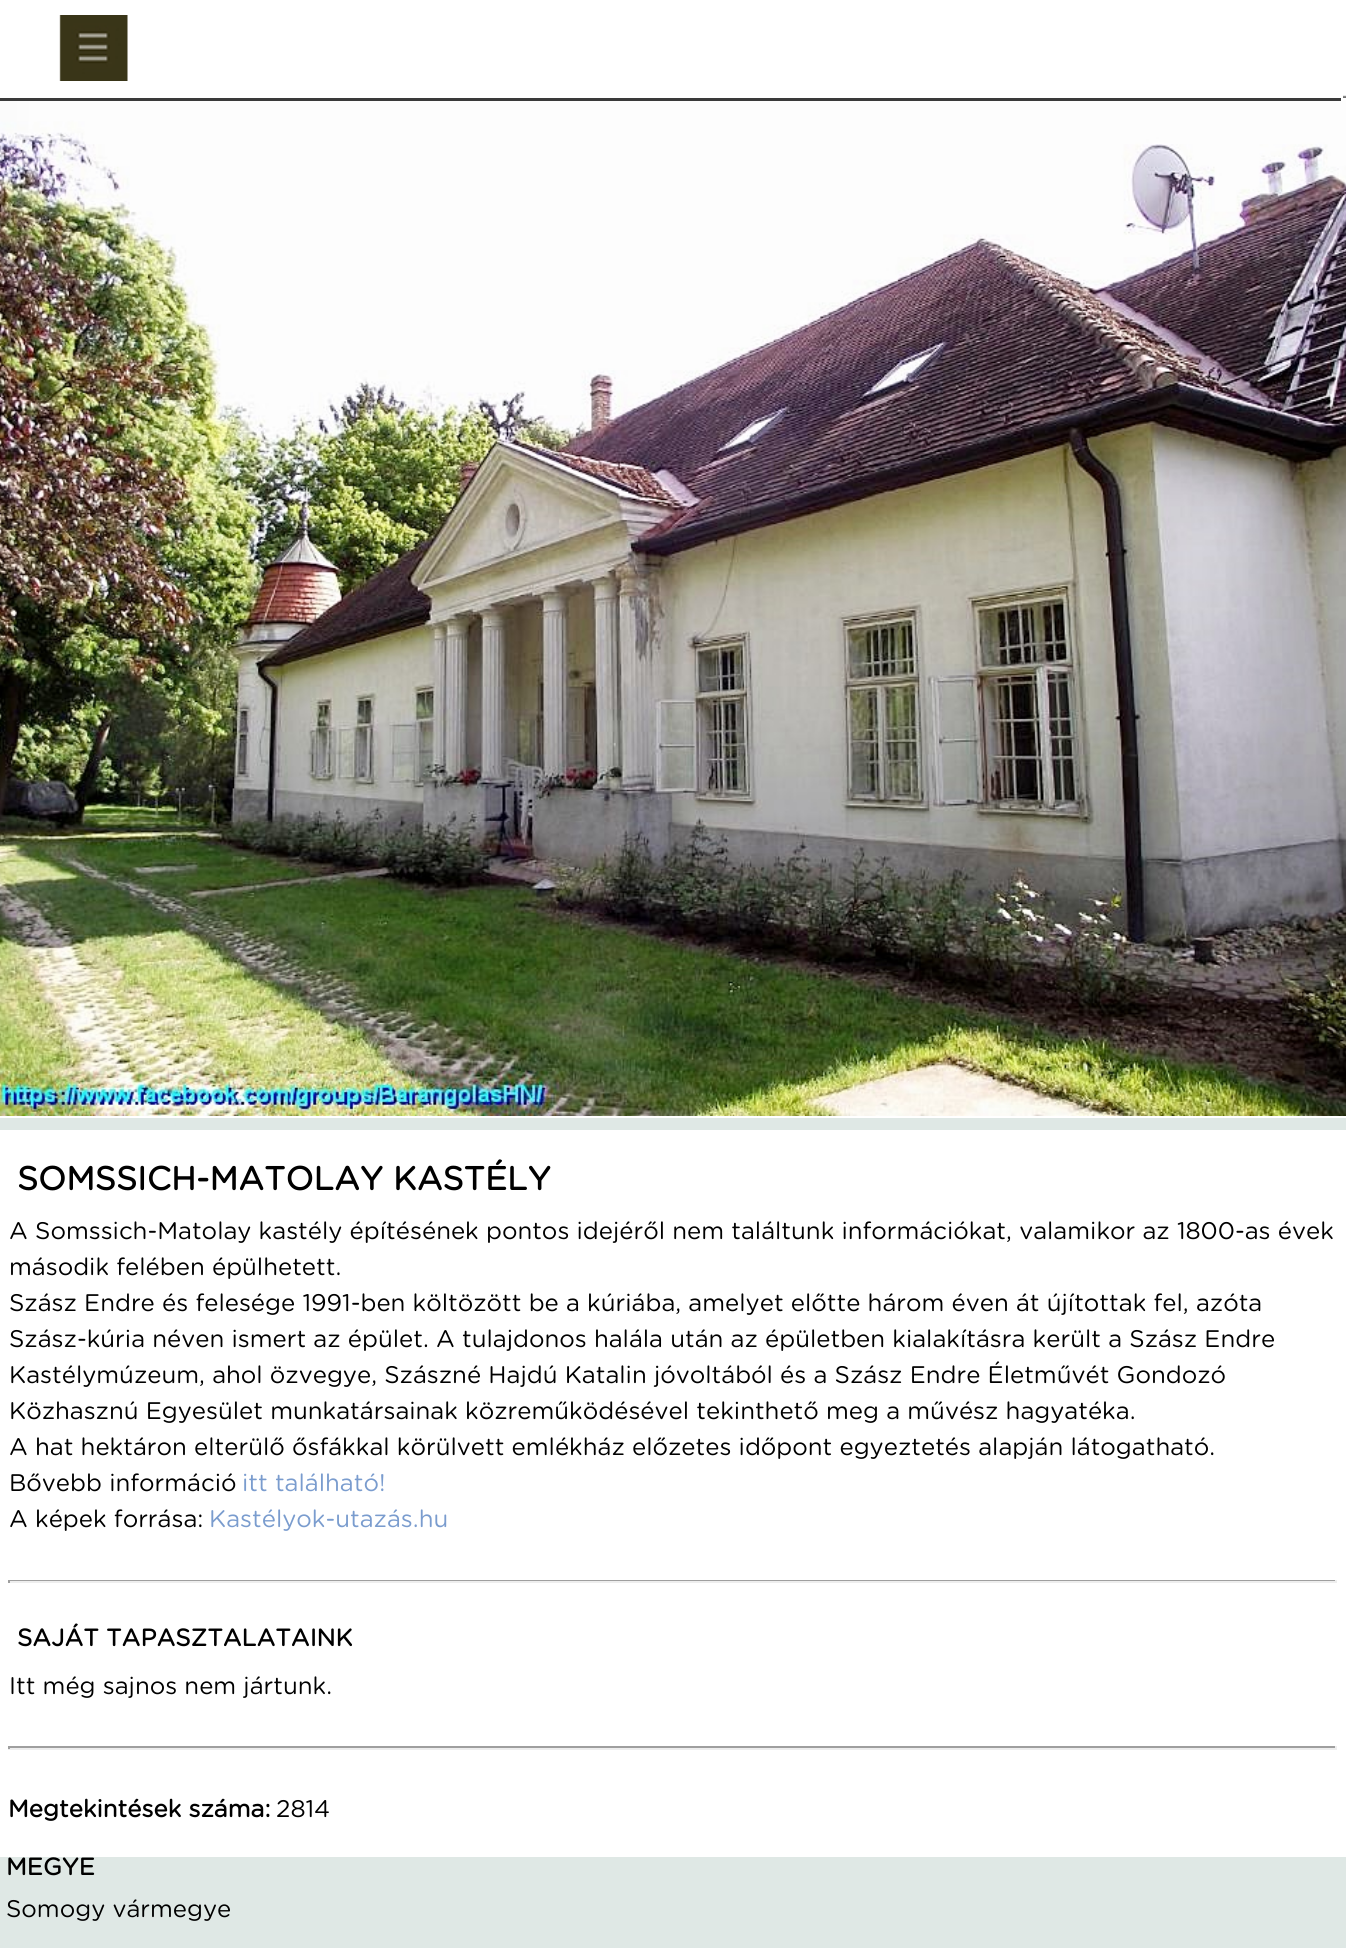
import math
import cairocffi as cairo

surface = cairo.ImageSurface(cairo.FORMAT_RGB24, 1346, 1948)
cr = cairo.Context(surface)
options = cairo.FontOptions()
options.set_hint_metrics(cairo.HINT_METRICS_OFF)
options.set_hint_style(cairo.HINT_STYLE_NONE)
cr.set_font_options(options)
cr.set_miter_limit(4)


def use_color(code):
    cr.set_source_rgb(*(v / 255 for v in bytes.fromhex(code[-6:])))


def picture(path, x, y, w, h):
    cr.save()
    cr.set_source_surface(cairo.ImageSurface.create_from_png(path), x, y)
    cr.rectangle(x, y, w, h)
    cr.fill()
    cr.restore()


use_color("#dfe8e5")
cr.paint()
picture("img1.png", 1343, 0, 3, 98)
cr.rectangle(-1, 99, 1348, 1018)
use_color("#ffffff")
cr.stroke()
picture("img3.png", 0, 100, 1346, 1016)
cr.rectangle(0, 0, 1343, 101)
cr.fill()
picture("img2.png", 59, 15, 69, 66)
use_color("#3a3a3a")
cr.rectangle(0, 98, 1341, 3)
cr.fill()
use_color("#ffffff")
cr.rectangle(0, 1130, 1346, 727)
cr.fill()
cr.select_font_face("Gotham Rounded", cairo.FONT_SLANT_NORMAL, cairo.FONT_WEIGHT_BOLD)
cr.set_font_size(33)
use_color("#000000")
cr.move_to(17, 1190)
cr.show_text("SOMSSICH-MATOLAY KASTÉLY")
cr.select_font_face("Gotham Rounded")
cr.set_font_size(24)
cr.move_to(9, 1239)
cr.show_text("A Somssich-Matolay kastély építésének pontos idejéről nem találtunk információkat, valamikor az 1800-as évek")
cr.move_to(9, 1275)
cr.show_text("második felében épülhetett.")
cr.move_to(9, 1311)
cr.show_text("Szász Endre és felesége 1991-ben költözött be a kúriába, amelyet előtte három éven át újítottak fel, azóta")
cr.move_to(9, 1347)
cr.show_text("Szász-kúria néven ismert az épület. A tulajdonos halála után az épületben kialakításra került a Szász Endre")
cr.move_to(9, 1383)
cr.show_text("Kastélymúzeum, ahol özvegye, Szászné Hajdú Katalin jóvoltából és a Szász Endre Életművét Gondozó")
cr.move_to(9, 1419)
cr.show_text("Közhasznú Egyesület munkatársainak közreműködésével tekinthető meg a művész hagyatéka.")
cr.move_to(9, 1455)
cr.show_text("A hat hektáron elterülő ősfákkal körülvett emlékház előzetes időpont egyeztetés alapján látogatható.")
cr.move_to(9, 1491)
cr.show_text("Bővebb információ")
use_color("#7a9cce")
cr.move_to(242, 1491)
cr.show_text("itt található!")
use_color("#000000")
cr.move_to(9, 1527)
cr.show_text("A képek forrása:")
use_color("#7a9cce")
cr.move_to(209, 1527)
cr.show_text("Kastélyok-utazás.hu")
use_color("#9f9f9f")
cr.rectangle(8, 1580, 1329, 1)
cr.fill()
use_color("#eeeeee")
cr.rectangle(1335, 1580, 2, 3)
cr.fill()
cr.rectangle(8, 1581, 1329, 2)
cr.fill()
use_color("#9f9f9f")
cr.rectangle(8, 1580, 2, 3)
cr.fill()
cr.select_font_face("Gotham Rounded", cairo.FONT_SLANT_NORMAL, cairo.FONT_WEIGHT_BOLD)
use_color("#000000")
cr.move_to(17, 1646)
cr.show_text("SAJÁT TAPASZTALATAINK")
cr.select_font_face("Gotham Rounded")
cr.move_to(9, 1694)
cr.show_text("Itt még sajnos nem jártunk.")
use_color("#9f9f9f")
cr.rectangle(8, 1746, 1329, 2)
cr.fill()
use_color("#eeeeee")
cr.rectangle(1335, 1746, 2, 3)
cr.fill()
cr.rectangle(8, 1748, 1329, 2)
cr.fill()
use_color("#9f9f9f")
cr.rectangle(8, 1746, 2, 3)
cr.fill()
cr.select_font_face("Gotham Rounded", cairo.FONT_SLANT_NORMAL, cairo.FONT_WEIGHT_BOLD)
use_color("#000000")
cr.move_to(8, 1817)
cr.show_text("Megtekintések száma:")
cr.select_font_face("Gotham Rounded")
cr.move_to(276, 1817)
cr.show_text("2814")
cr.select_font_face("Gotham Rounded", cairo.FONT_SLANT_NORMAL, cairo.FONT_WEIGHT_BOLD)
cr.move_to(6, 1875)
cr.show_text("MEGYE")
cr.select_font_face("Gotham Rounded")
cr.move_to(6, 1917)
cr.show_text("Somogy vármegye")
surface.write_to_png("result.png")
